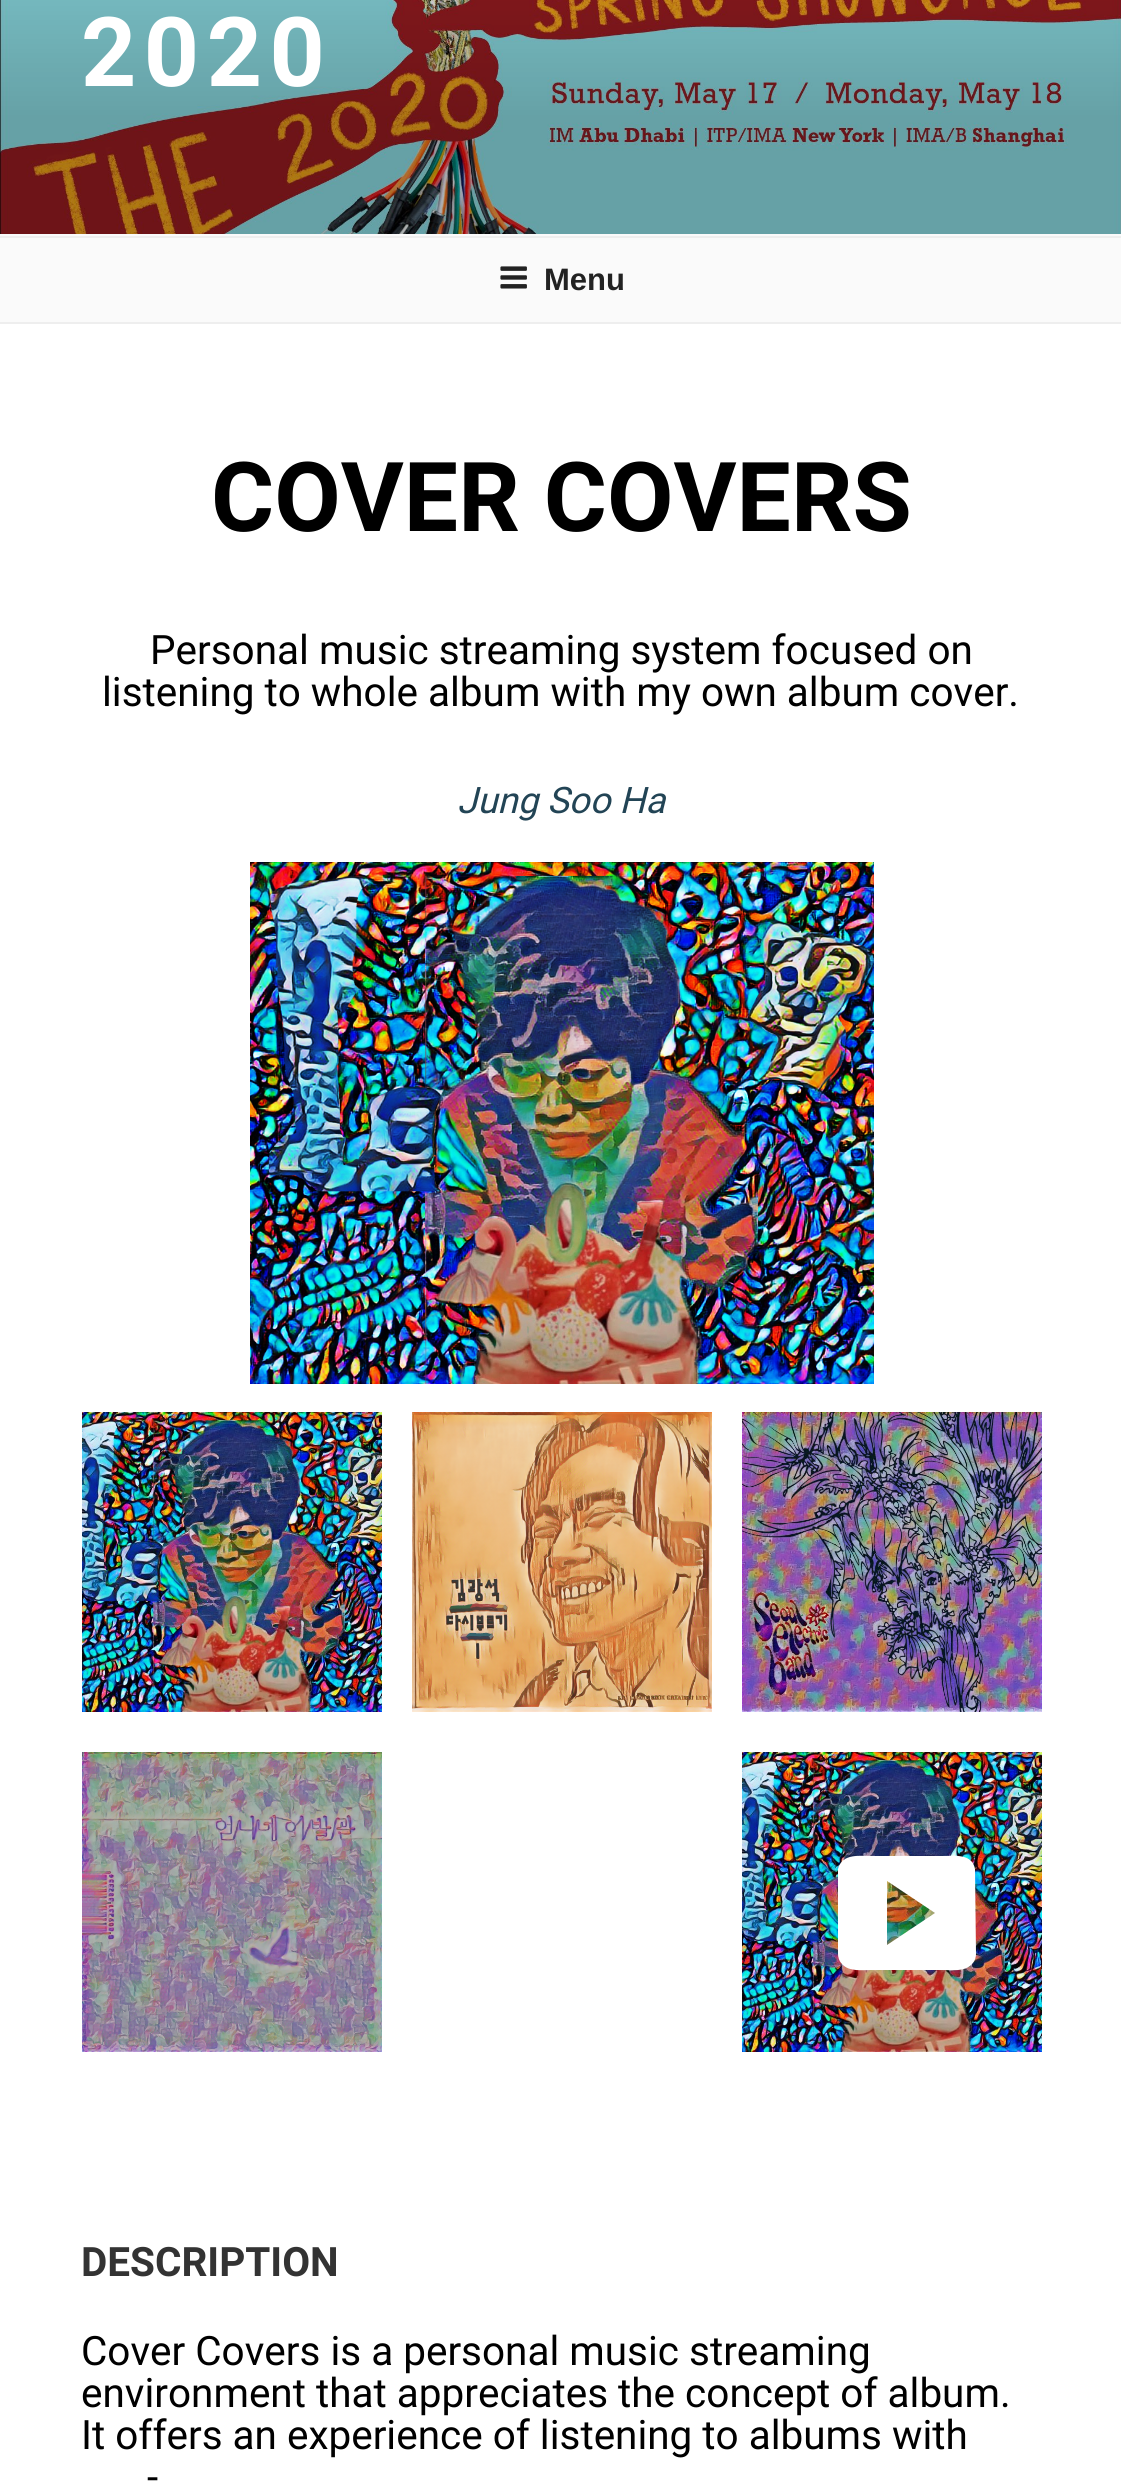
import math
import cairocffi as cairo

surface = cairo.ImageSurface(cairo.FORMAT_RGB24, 1121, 2481)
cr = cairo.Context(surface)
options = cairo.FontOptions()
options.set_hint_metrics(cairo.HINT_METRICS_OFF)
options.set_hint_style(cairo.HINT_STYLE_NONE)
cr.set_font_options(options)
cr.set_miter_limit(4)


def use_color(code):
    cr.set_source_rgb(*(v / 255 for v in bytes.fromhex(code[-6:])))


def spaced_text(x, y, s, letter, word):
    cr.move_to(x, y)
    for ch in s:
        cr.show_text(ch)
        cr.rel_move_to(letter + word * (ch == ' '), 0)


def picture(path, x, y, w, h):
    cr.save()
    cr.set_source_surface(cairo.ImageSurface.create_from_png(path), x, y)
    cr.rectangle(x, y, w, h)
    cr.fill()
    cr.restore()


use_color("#ffffff")
cr.paint()
use_color("#fafafa")
cr.rectangle(0, 234, 1121, 88)
cr.fill()
picture("img1.png", 0, 0, 1121, 234)
cr.select_font_face("Roboto", cairo.FONT_SLANT_NORMAL, cairo.FONT_WEIGHT_BOLD)
cr.set_font_size(96.5)
use_color("#ffffff")
spaced_text(81, 86, "2020", 7.5, 0)
use_color("#eeeeee")
cr.rectangle(0, 236, 1121, 2)
cr.fill()
cr.rectangle(0, 322, 1121, 2)
cr.fill()
picture("img2.png", 500, 266, 27, 23)
cr.select_font_face("Liberation Sans", cairo.FONT_SLANT_NORMAL, cairo.FONT_WEIGHT_BOLD)
cr.set_font_size(31)
use_color("#222222")
cr.move_to(544, 290)
cr.show_text("Menu")
cr.select_font_face("Roboto", cairo.FONT_SLANT_NORMAL, cairo.FONT_WEIGHT_BOLD)
cr.set_font_size(96.5)
use_color("#000000")
cr.move_to(211, 531)
cr.show_text("COVER COVERS")
cr.select_font_face("Roboto")
cr.set_font_size(40.5)
cr.move_to(150, 664)
cr.show_text("Personal music streaming system focused on")
cr.move_to(102, 706)
cr.show_text("listening to whole album with my own album cover.")
cr.select_font_face("Roboto", cairo.FONT_SLANT_ITALIC)
cr.set_font_size(36.5)
use_color("#224455")
cr.move_to(457, 813)
cr.show_text("Jung Soo Ha")
picture("img3.png", 250, 862, 624, 522)
picture("img4.png", 82, 1412, 300, 300)
picture("img5.png", 412, 1412, 300, 300)
picture("img6.png", 742, 1412, 300, 300)
picture("img7.png", 82, 1752, 300, 300)
picture("img8.png", 742, 1752, 300, 300)
use_color("#ffffff")
cr.new_path()
cr.move_to(976, 1954)
cr.line_to(975, 1869)
cr.curve_to(972, 1853, 954, 1856, 942, 1856)
cr.line_to(872, 1856)
cr.curve_to(860, 1856, 842, 1853, 838, 1869)
cr.line_to(838, 1954)
cr.curve_to(838, 1957, 839, 1961, 842, 1964)
cr.curve_to(849, 1972, 862, 1970, 872, 1970)
cr.line_to(942, 1970)
cr.curve_to(952, 1970, 965, 1972, 972, 1964)
cr.curve_to(975, 1961, 976, 1957, 976, 1954)
cr.close_path()
cr.move_to(887, 1945)
cr.line_to(887, 1881)
cr.line_to(935, 1913)
cr.close_path()
cr.fill()
cr.select_font_face("Roboto", cairo.FONT_SLANT_NORMAL, cairo.FONT_WEIGHT_BOLD)
cr.set_font_size(40.5)
use_color("#333333")
cr.move_to(81, 2276)
cr.show_text("DESCRIPTION")
cr.select_font_face("Roboto")
use_color("#000000")
cr.move_to(81, 2365)
cr.show_text("Cover Covers is a personal music streaming")
cr.move_to(81, 2407)
cr.show_text("environment that appreciates the concept of album.")
cr.move_to(81, 2449)
cr.show_text("It offers an experience of listening to albums with")
cr.move_to(147, 2491)
cr.show_text("-")
surface.write_to_png("result.png")
